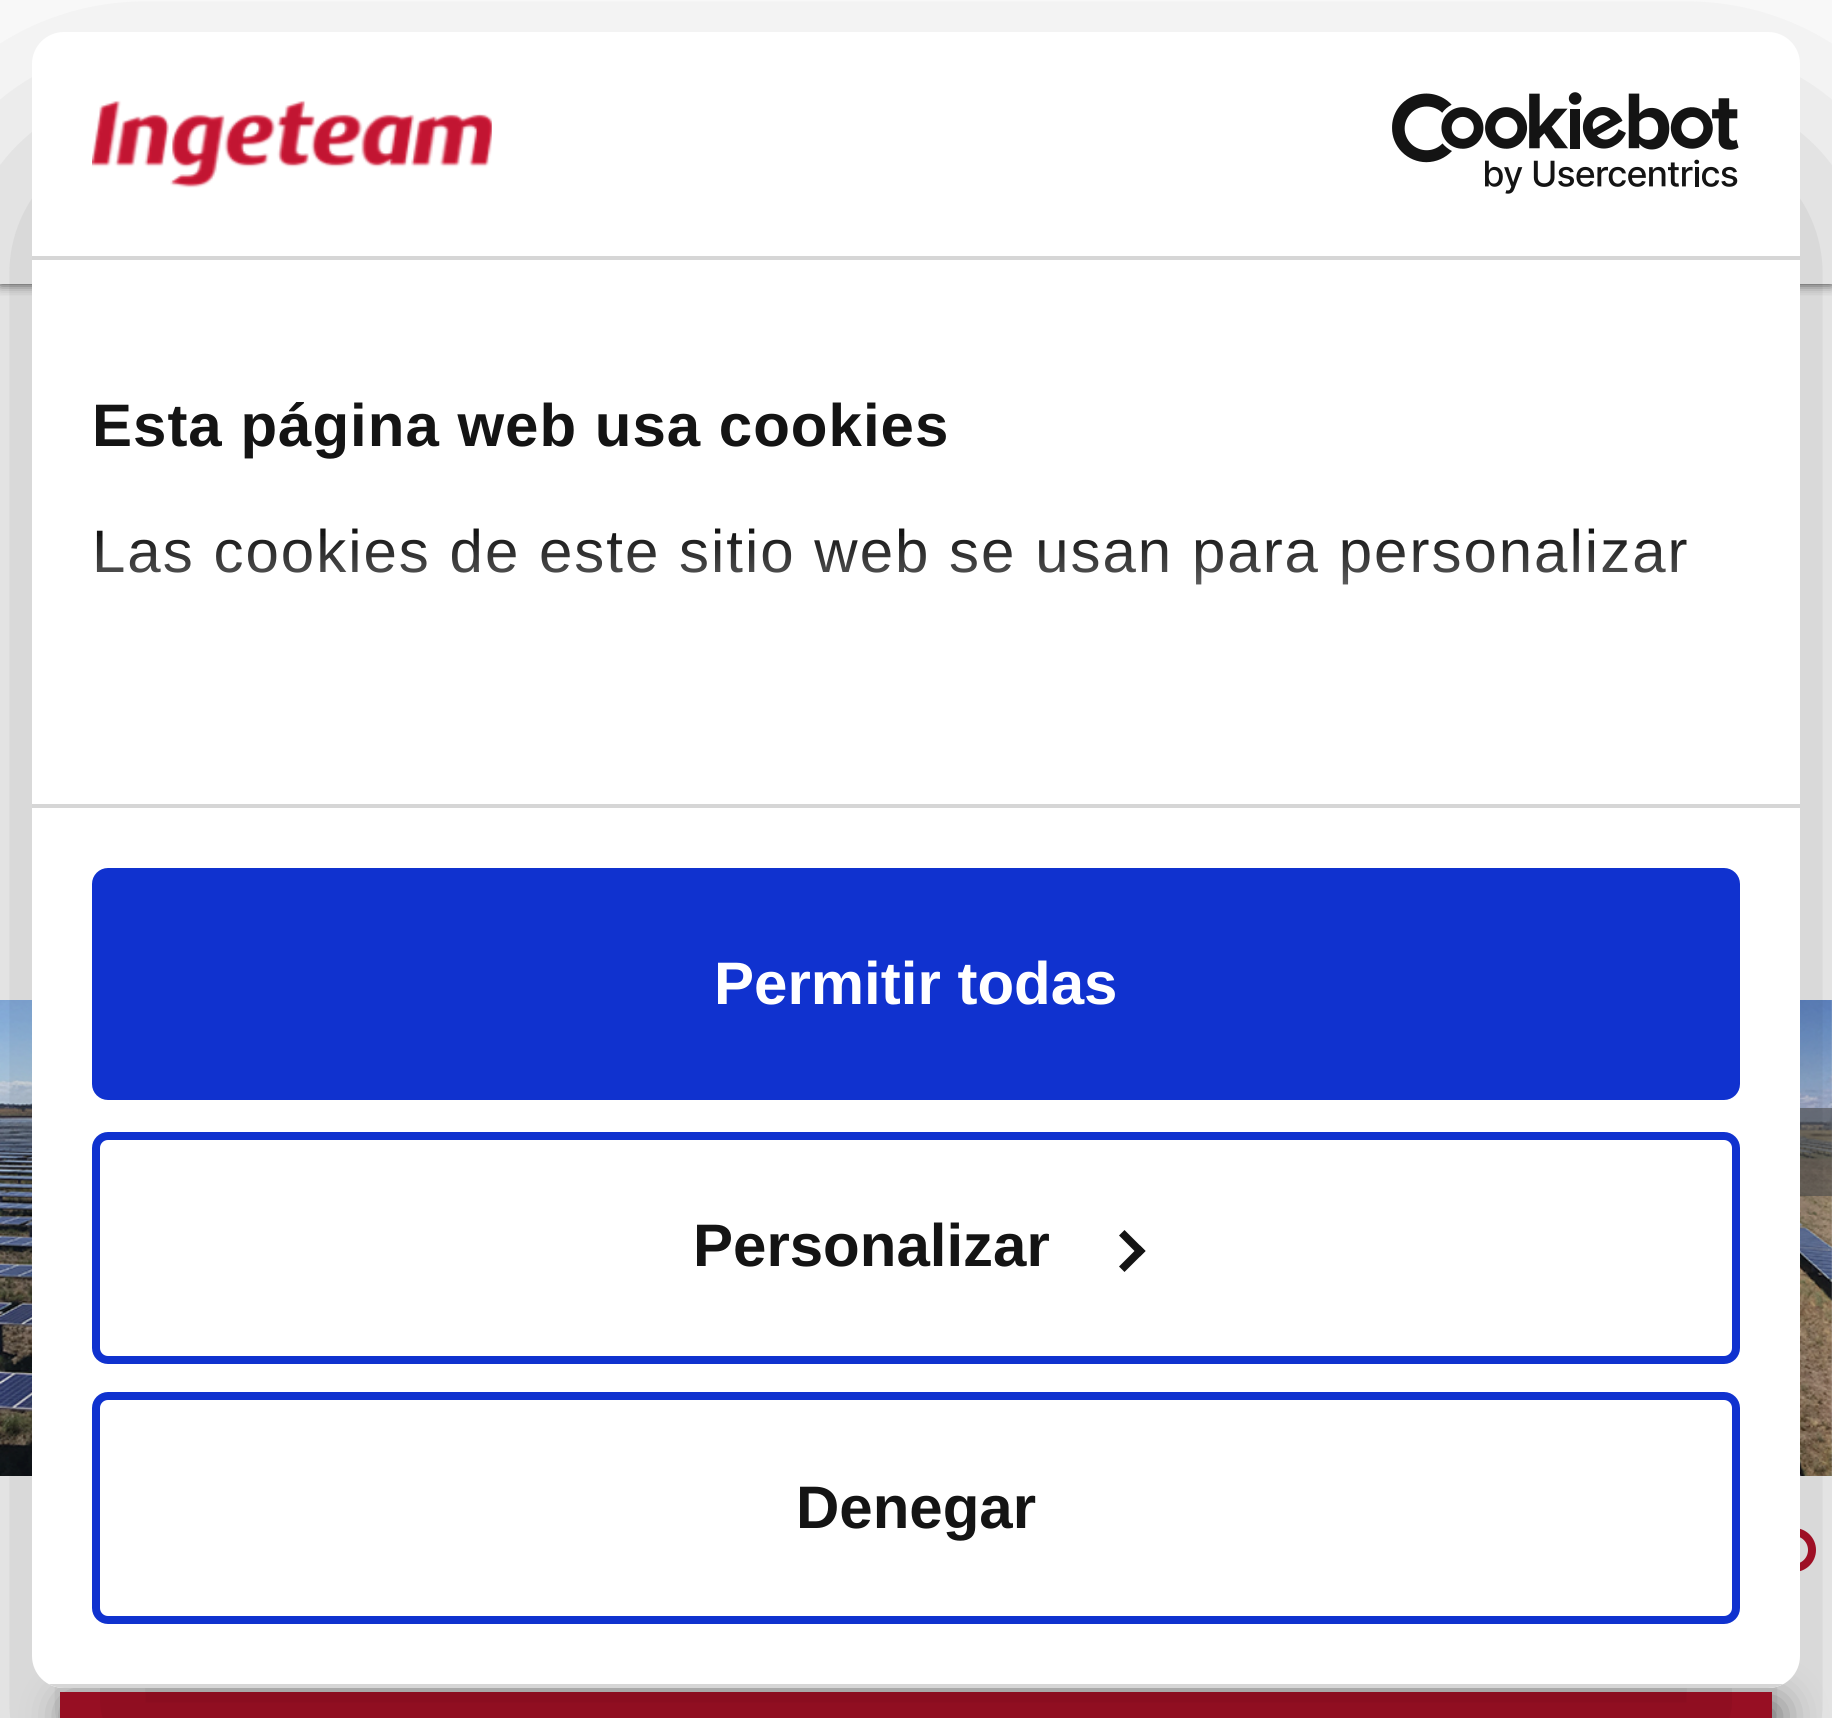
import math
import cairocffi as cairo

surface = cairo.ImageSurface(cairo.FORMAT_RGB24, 1832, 1718)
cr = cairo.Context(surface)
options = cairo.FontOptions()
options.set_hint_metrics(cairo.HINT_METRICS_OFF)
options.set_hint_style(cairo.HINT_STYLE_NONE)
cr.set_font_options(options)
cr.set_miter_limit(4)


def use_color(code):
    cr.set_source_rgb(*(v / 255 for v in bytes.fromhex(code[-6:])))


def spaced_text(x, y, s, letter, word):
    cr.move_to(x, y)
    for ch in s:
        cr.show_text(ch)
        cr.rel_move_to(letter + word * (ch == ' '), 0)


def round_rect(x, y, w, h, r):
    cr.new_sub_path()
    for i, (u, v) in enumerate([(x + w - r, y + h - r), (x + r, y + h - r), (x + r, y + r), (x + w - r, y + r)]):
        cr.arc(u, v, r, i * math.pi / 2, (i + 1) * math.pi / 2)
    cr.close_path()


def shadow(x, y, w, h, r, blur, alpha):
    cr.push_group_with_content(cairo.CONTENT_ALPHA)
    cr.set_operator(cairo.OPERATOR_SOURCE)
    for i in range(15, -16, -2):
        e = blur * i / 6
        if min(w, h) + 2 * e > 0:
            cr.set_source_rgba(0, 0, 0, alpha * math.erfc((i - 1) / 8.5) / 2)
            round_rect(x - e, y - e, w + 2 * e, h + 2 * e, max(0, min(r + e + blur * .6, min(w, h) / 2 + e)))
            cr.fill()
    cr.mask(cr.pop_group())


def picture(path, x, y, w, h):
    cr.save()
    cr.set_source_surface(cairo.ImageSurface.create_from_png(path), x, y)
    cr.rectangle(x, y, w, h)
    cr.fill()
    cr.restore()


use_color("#ffffff")
cr.paint()
cr.save()
cr.rectangle(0, 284, 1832, 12)
cr.clip()
use_color("#343434")
shadow(0, 0, 1832, 284, 0, 6, 1)
cr.restore()
picture("img1.png", 0, 1000, 1832, 476)
cr.set_source_rgba(0.333, 0.333, 0.333, 0.6)
cr.rectangle(1800, 1108, 32, 88)
cr.fill()
cr.arc(1794, 1550, 18, 0, 2 * math.pi)
use_color("#ba122b")
cr.set_line_width(8)
cr.stroke()
use_color("#888888")
shadow(68, 1704, 1712, 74, 0, 20, 1)
use_color("#ba122b")
cr.rectangle(60, 1692, 1712, 26)
cr.fill()
use_color("#000000")
shadow(32, 160, 1768, 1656, 32, 136, 0.3)
use_color("#ffffff")
round_rect(32, 32, 1768, 1656, 32)
cr.fill()
use_color("#d6d6d6")
cr.rectangle(32, 256, 1768, 4)
cr.fill()
picture("img2.png", 92, 100, 400, 88)
picture("img3.png", 1392, 92, 347, 102)
cr.rectangle(32, 804, 1768, 4)
cr.fill()
cr.select_font_face("Liberation Sans", cairo.FONT_SLANT_NORMAL, cairo.FONT_WEIGHT_BOLD)
cr.set_font_size(60)
use_color("#141414")
spaced_text(92, 446, "Esta página web usa cookies", 1, 0)
cr.select_font_face("Liberation Sans")
spaced_text(92, 572, "Las cookies de este sitio web se usan para personalizar", 2, 0)
gradient = cairo.LinearGradient(890, 804, 890, 532)
gradient.add_color_stop_rgba(0, 1, 1, 1, 1)
gradient.add_color_stop_rgba(0.5, 1, 1, 1, 0.8)
gradient.add_color_stop_rgba(1, 1, 1, 1, 0)
cr.set_source(gradient)
cr.rectangle(96, 536, 1591, 49)
cr.fill()
cr.save()
round_rect(32, 32, 1768, 1656, 32)
cr.clip()
use_color("#d6d6d6")
cr.rectangle(48, 1684, 1736, 4)
cr.fill()
cr.restore()
use_color("#1032cf")
round_rect(96, 872, 1640, 224, 12)
cr.fill_preserve()
cr.stroke()
cr.select_font_face("Liberation Sans", cairo.FONT_SLANT_NORMAL, cairo.FONT_WEIGHT_BOLD)
use_color("#ffffff")
cr.move_to(714, 1004)
cr.show_text("Permitir todas")
round_rect(96, 1136, 1640, 224, 12)
use_color("#1032cf")
cr.stroke()
use_color("#141414")
cr.move_to(693, 1266)
cr.show_text("Personalizar")
cr.new_path()
cr.move_to(1124.5, 1230)
cr.line_to(1145.5, 1251)
cr.line_to(1140, 1256.5)
cr.line_to(1119, 1235.5)
cr.close_path()
cr.fill()
cr.new_path()
cr.move_to(1140, 1245.5)
cr.line_to(1145.5, 1251)
cr.line_to(1124.5, 1272)
cr.line_to(1119, 1266.5)
cr.close_path()
cr.fill()
round_rect(96, 1396, 1640, 224, 12)
use_color("#1032cf")
cr.stroke()
use_color("#141414")
cr.move_to(796, 1528)
cr.show_text("Denegar")
surface.write_to_png("result.png")
